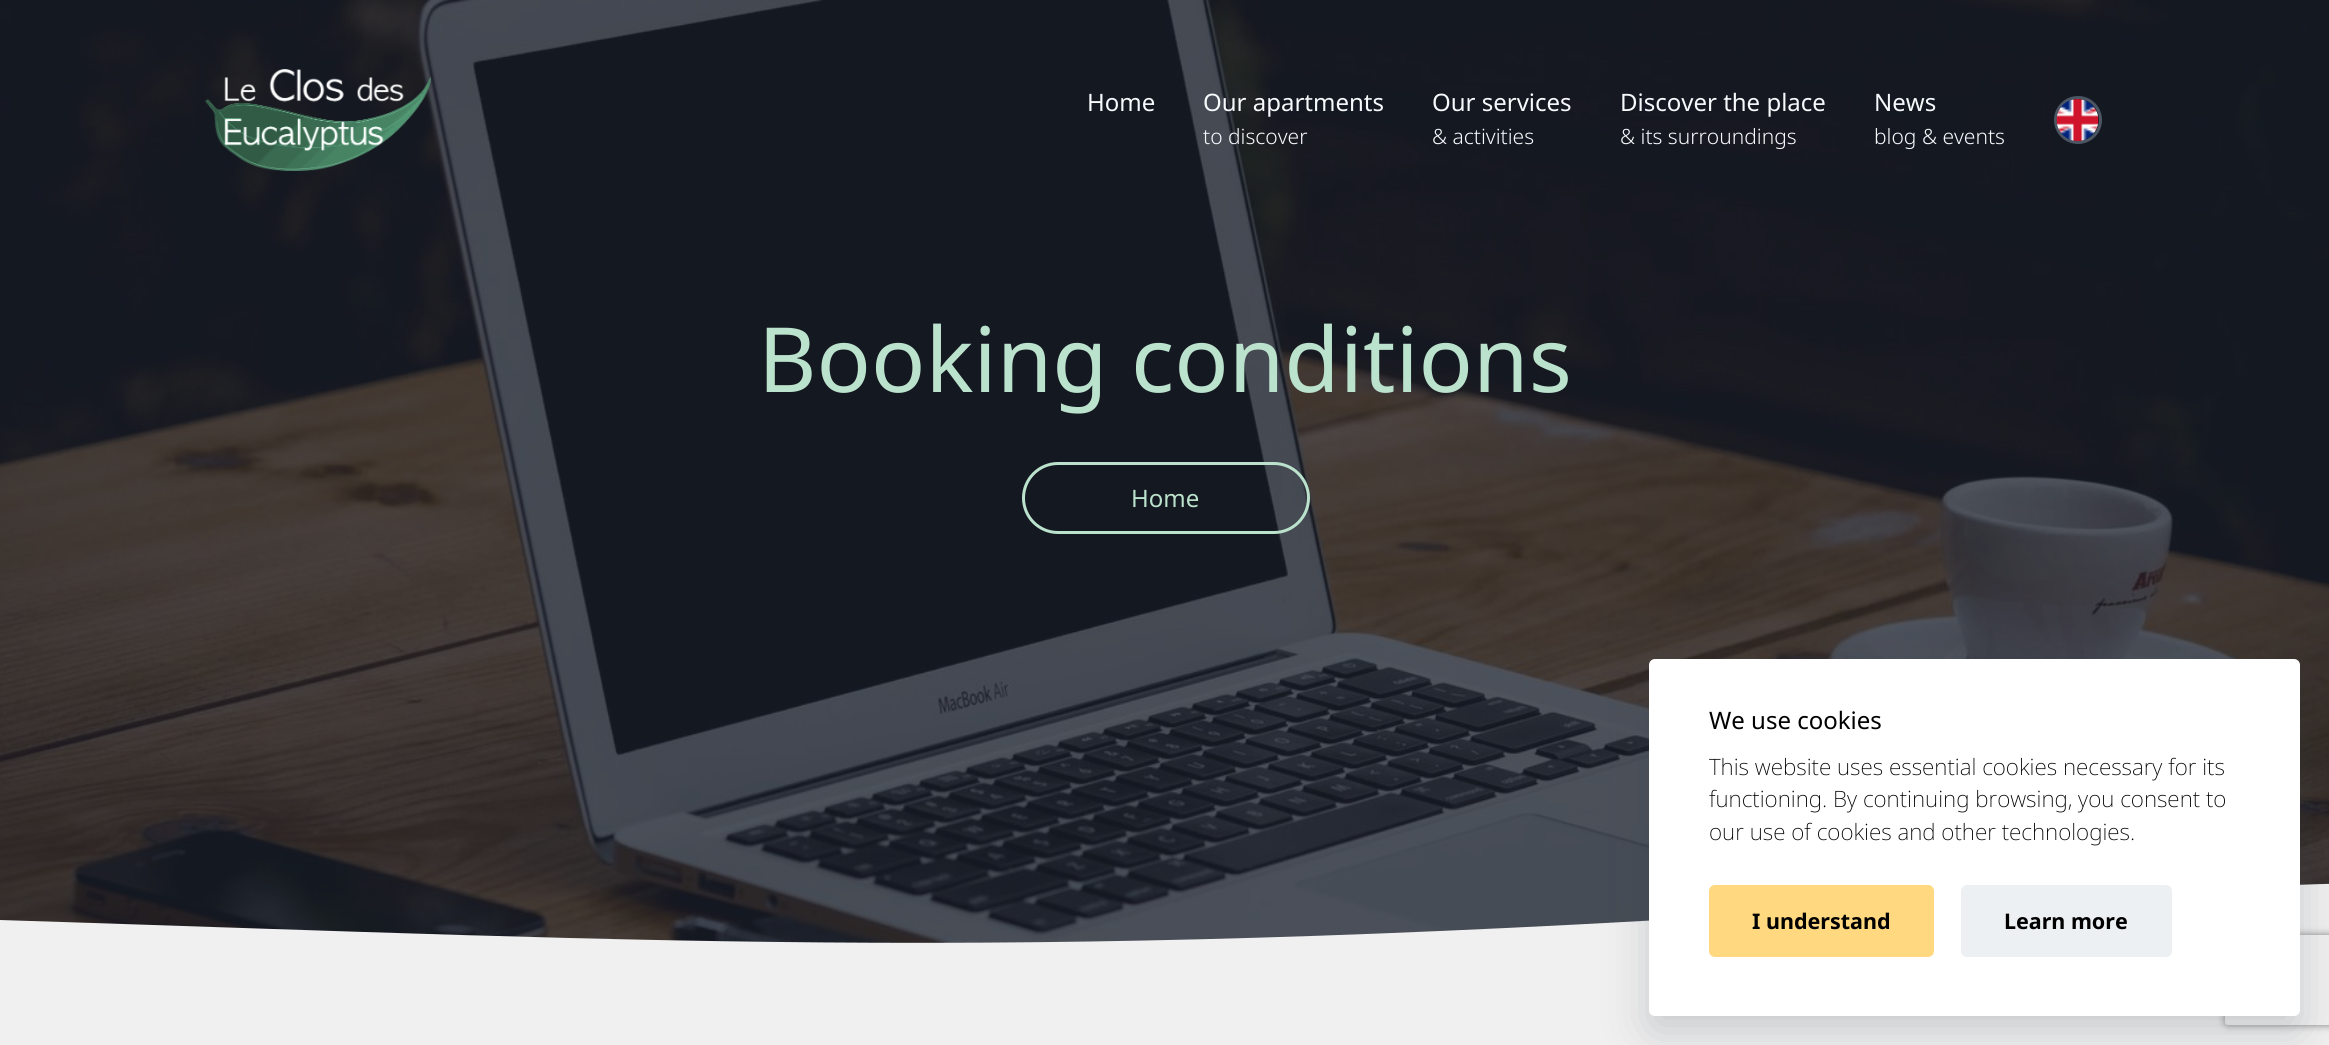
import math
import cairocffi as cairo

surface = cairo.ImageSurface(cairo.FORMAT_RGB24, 2329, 1045)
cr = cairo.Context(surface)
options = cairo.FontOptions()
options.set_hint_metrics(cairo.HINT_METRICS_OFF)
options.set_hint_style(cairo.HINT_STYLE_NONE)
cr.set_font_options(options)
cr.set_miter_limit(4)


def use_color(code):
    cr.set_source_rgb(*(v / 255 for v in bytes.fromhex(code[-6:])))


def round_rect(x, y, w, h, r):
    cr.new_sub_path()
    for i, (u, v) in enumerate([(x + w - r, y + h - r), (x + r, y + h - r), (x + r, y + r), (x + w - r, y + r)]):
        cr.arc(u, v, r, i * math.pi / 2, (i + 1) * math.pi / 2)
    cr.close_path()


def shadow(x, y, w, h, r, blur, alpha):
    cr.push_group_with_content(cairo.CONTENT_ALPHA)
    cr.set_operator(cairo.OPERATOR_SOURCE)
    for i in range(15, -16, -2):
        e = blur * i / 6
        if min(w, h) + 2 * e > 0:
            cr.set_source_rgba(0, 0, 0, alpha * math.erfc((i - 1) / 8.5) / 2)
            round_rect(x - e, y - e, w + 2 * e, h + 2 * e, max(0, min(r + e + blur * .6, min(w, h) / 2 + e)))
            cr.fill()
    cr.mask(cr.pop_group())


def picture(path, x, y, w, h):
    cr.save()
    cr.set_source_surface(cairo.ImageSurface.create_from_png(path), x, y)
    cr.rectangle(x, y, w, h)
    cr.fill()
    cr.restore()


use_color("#f0f0f0")
cr.paint()
picture("img3.png", 0, 0, 2329, 943)
picture("img1.png", 205, 69, 226, 102)
cr.select_font_face("Noto Sans")
cr.set_font_size(24)
use_color("#f7fafc")
cr.move_to(1087, 111)
cr.show_text("Home")
cr.move_to(1203, 111)
cr.show_text("Our apartments")
cr.select_font_face("Noto Sans Light")
cr.set_font_size(21)
cr.move_to(1203, 144)
cr.show_text("to discover")
cr.select_font_face("Noto Sans")
cr.set_font_size(24)
cr.move_to(1432, 111)
cr.show_text("Our services")
cr.select_font_face("Noto Sans Light")
cr.set_font_size(21)
cr.move_to(1432, 144)
cr.show_text("& activities")
cr.select_font_face("Noto Sans")
cr.set_font_size(24)
cr.move_to(1620, 111)
cr.show_text("Discover the place")
cr.select_font_face("Noto Sans Light")
cr.set_font_size(21)
cr.move_to(1620, 144)
cr.show_text("& its surroundings")
cr.select_font_face("Noto Sans")
cr.set_font_size(24)
cr.move_to(1874, 111)
cr.show_text("News")
cr.select_font_face("Noto Sans Light")
cr.set_font_size(21)
cr.move_to(1874, 144)
cr.show_text("blog & events")
cr.new_path()
cr.arc(2078, 120, 22.5, 0, 2 * math.pi)
use_color("#4b5563")
cr.set_line_width(3)
cr.stroke()
picture("img2.png", 2056, 99, 43, 42)
cr.select_font_face("Noto Sans")
cr.set_font_size(90)
use_color("#bbe2cc")
cr.move_to(758, 392)
cr.show_text("Booking conditions")
round_rect(1023.5, 463.5, 285, 69, 34.5)
cr.stroke()
cr.set_font_size(24)
cr.move_to(1131, 507)
cr.show_text("Home")
cr.save()
cr.rectangle(0, 878, 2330, 150)
cr.clip()
use_color("#f0f0f0")
cr.new_path()
cr.move_to(0, 920)
cr.curve_to(692, 942, 1022, 963, 1872, 907)
cr.curve_to(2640, 855, 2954, 889, 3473, 908)
cr.curve_to(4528, 939, 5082, 973, 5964, 920)
cr.line_to(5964, 1030)
cr.line_to(0, 1030)
cr.close_path()
cr.fill()
cr.restore()
use_color("#393e48")
shadow(1649, 674, 651, 357, 6, 22.5, 0.22)
cr.save()
cr.set_fill_rule(cairo.FILL_RULE_EVEN_ODD)
cr.new_path()
cr.move_to(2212, 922)
cr.line_to(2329, 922)
cr.line_to(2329, 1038)
cr.line_to(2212, 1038)
cr.close_path()
cr.move_to(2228, 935)
cr.line_to(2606, 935)
cr.curve_to(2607.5, 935, 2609, 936.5, 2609, 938)
cr.line_to(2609, 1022)
cr.curve_to(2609, 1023.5, 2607.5, 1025, 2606, 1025)
cr.line_to(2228, 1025)
cr.curve_to(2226.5, 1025, 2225, 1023.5, 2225, 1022)
cr.line_to(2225, 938)
cr.curve_to(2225, 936.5, 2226.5, 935, 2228, 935)
cr.close_path()
cr.clip()
use_color("#808080")
shadow(2225, 935, 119, 90, 3, 4, 1)
cr.restore()
use_color("#ffffff")
round_rect(1649, 659, 651, 357, 6)
cr.fill()
use_color("#000000")
cr.move_to(1709, 729)
cr.show_text("We use cookies")
cr.select_font_face("Noto Sans ExtraLight")
cr.set_font_size(22.5)
cr.move_to(1709, 775)
cr.show_text("This website uses essential cookies necessary for its")
cr.move_to(1709, 807)
cr.show_text("functioning. By continuing browsing, you consent to")
cr.move_to(1709, 840)
cr.show_text("our use of cookies and other technologies.")
use_color("#ffd87f")
round_rect(1709, 885, 225, 72, 6)
cr.fill()
cr.select_font_face("Noto Sans", cairo.FONT_SLANT_NORMAL, cairo.FONT_WEIGHT_BOLD)
cr.set_font_size(21.5)
use_color("#000000")
cr.move_to(1752, 929)
cr.show_text("I understand")
use_color("#edf0f2")
round_rect(1961, 885, 211, 72, 6)
cr.fill()
use_color("#000000")
cr.move_to(2004, 929)
cr.show_text("Learn more")
surface.write_to_png("result.png")
